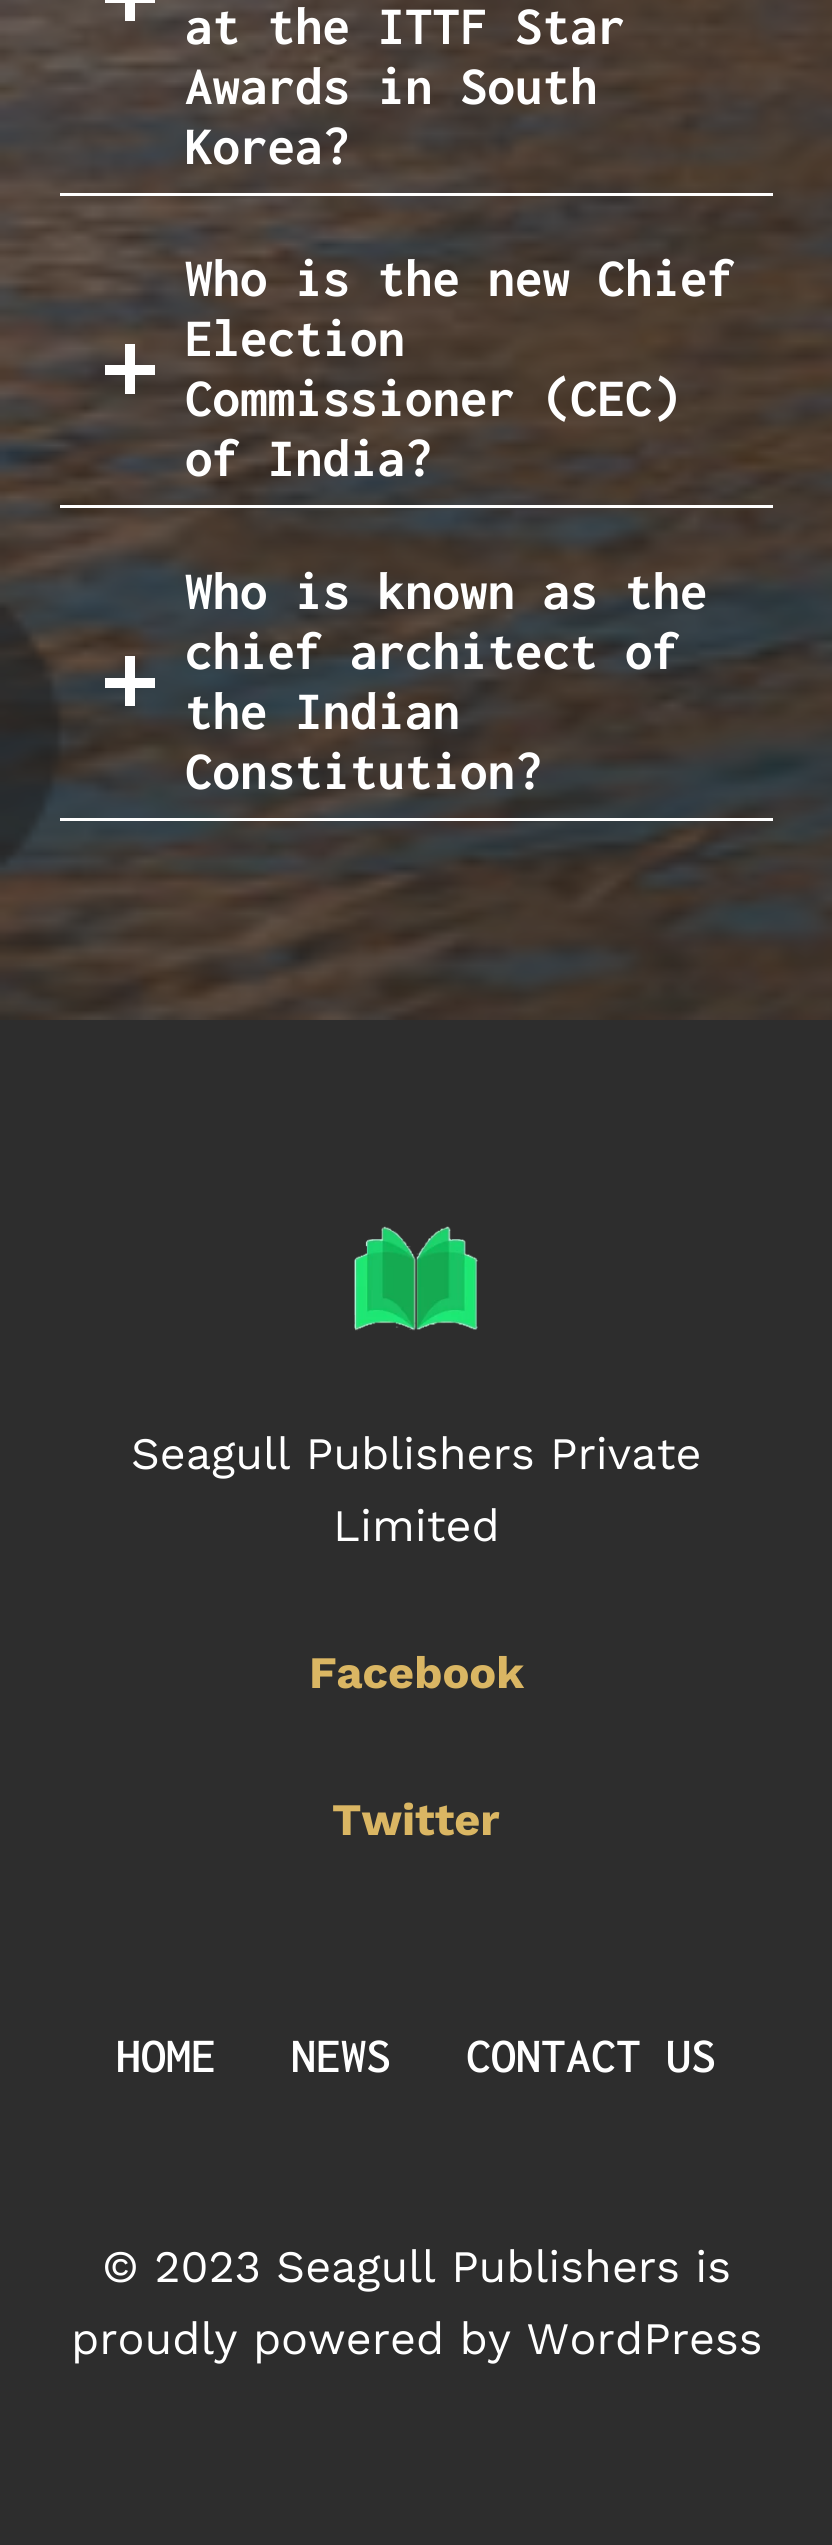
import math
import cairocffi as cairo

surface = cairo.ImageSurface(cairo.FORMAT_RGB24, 832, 2545)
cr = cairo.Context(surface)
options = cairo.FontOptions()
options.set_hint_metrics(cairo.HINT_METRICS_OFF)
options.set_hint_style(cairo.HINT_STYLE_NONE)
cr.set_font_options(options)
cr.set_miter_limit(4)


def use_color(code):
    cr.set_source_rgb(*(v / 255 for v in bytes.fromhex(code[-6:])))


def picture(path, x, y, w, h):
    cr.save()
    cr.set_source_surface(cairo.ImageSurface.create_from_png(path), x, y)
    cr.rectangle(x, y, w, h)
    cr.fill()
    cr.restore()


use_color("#2d2d2d")
cr.paint()
picture("img1.png", 0, 0, 832, 1020)
use_color("#ffffff")
cr.rectangle(60, 193, 713, 3)
cr.fill()
cr.rectangle(105, 0, 50, 3)
cr.fill()
cr.rectangle(125, 3, 10, 18)
cr.fill()
cr.select_font_face("Inconsolata", cairo.FONT_SLANT_NORMAL, cairo.FONT_WEIGHT_BOLD)
cr.set_font_size(55)
cr.move_to(185, 44)
cr.show_text("at the ITTF Star")
cr.move_to(185, 104)
cr.show_text("Awards in South")
cr.move_to(185, 164)
cr.show_text("Korea?")
cr.rectangle(60, 505, 713, 3)
cr.fill()
cr.rectangle(125, 344, 10, 50)
cr.fill()
cr.rectangle(105, 365, 50, 10)
cr.fill()
cr.move_to(185, 296)
cr.show_text("Who is the new Chief")
cr.move_to(185, 356)
cr.show_text("Election")
cr.move_to(185, 416)
cr.show_text("Commissioner (CEC)")
cr.move_to(185, 476)
cr.show_text("of India?")
cr.rectangle(60, 818, 713, 3)
cr.fill()
cr.rectangle(125, 656, 10, 50)
cr.fill()
cr.rectangle(105, 678, 50, 10)
cr.fill()
cr.move_to(185, 609)
cr.show_text("Who is known as the")
cr.move_to(185, 669)
cr.show_text("chief architect of")
cr.move_to(185, 729)
cr.show_text("the Indian")
cr.move_to(185, 789)
cr.show_text("Constitution?")
picture("img2.png", 354, 1226, 124, 105)
cr.select_font_face("Work Sans")
cr.set_font_size(45)
cr.move_to(131, 1469)
cr.show_text("Seagull Publishers Private")
cr.move_to(333, 1541)
cr.show_text("Limited")
cr.select_font_face("Work Sans", cairo.FONT_SLANT_NORMAL, cairo.FONT_WEIGHT_BOLD)
use_color("#dab663")
cr.move_to(309, 1688)
cr.show_text("Facebook")
cr.move_to(332, 1835)
cr.show_text("Twitter")
cr.select_font_face("Inconsolata SemiBold")
cr.set_font_size(50)
use_color("#ffffff")
cr.move_to(116, 2072)
cr.show_text("HOME")
cr.move_to(291, 2072)
cr.show_text("NEWS")
cr.move_to(466, 2072)
cr.show_text("CONTACT US")
cr.select_font_face("Work Sans")
cr.set_font_size(45)
cr.move_to(102, 2282)
cr.show_text("© 2023 Seagull Publishers is")
cr.move_to(71, 2354)
cr.show_text("proudly powered by WordPress")
surface.write_to_png("result.png")
